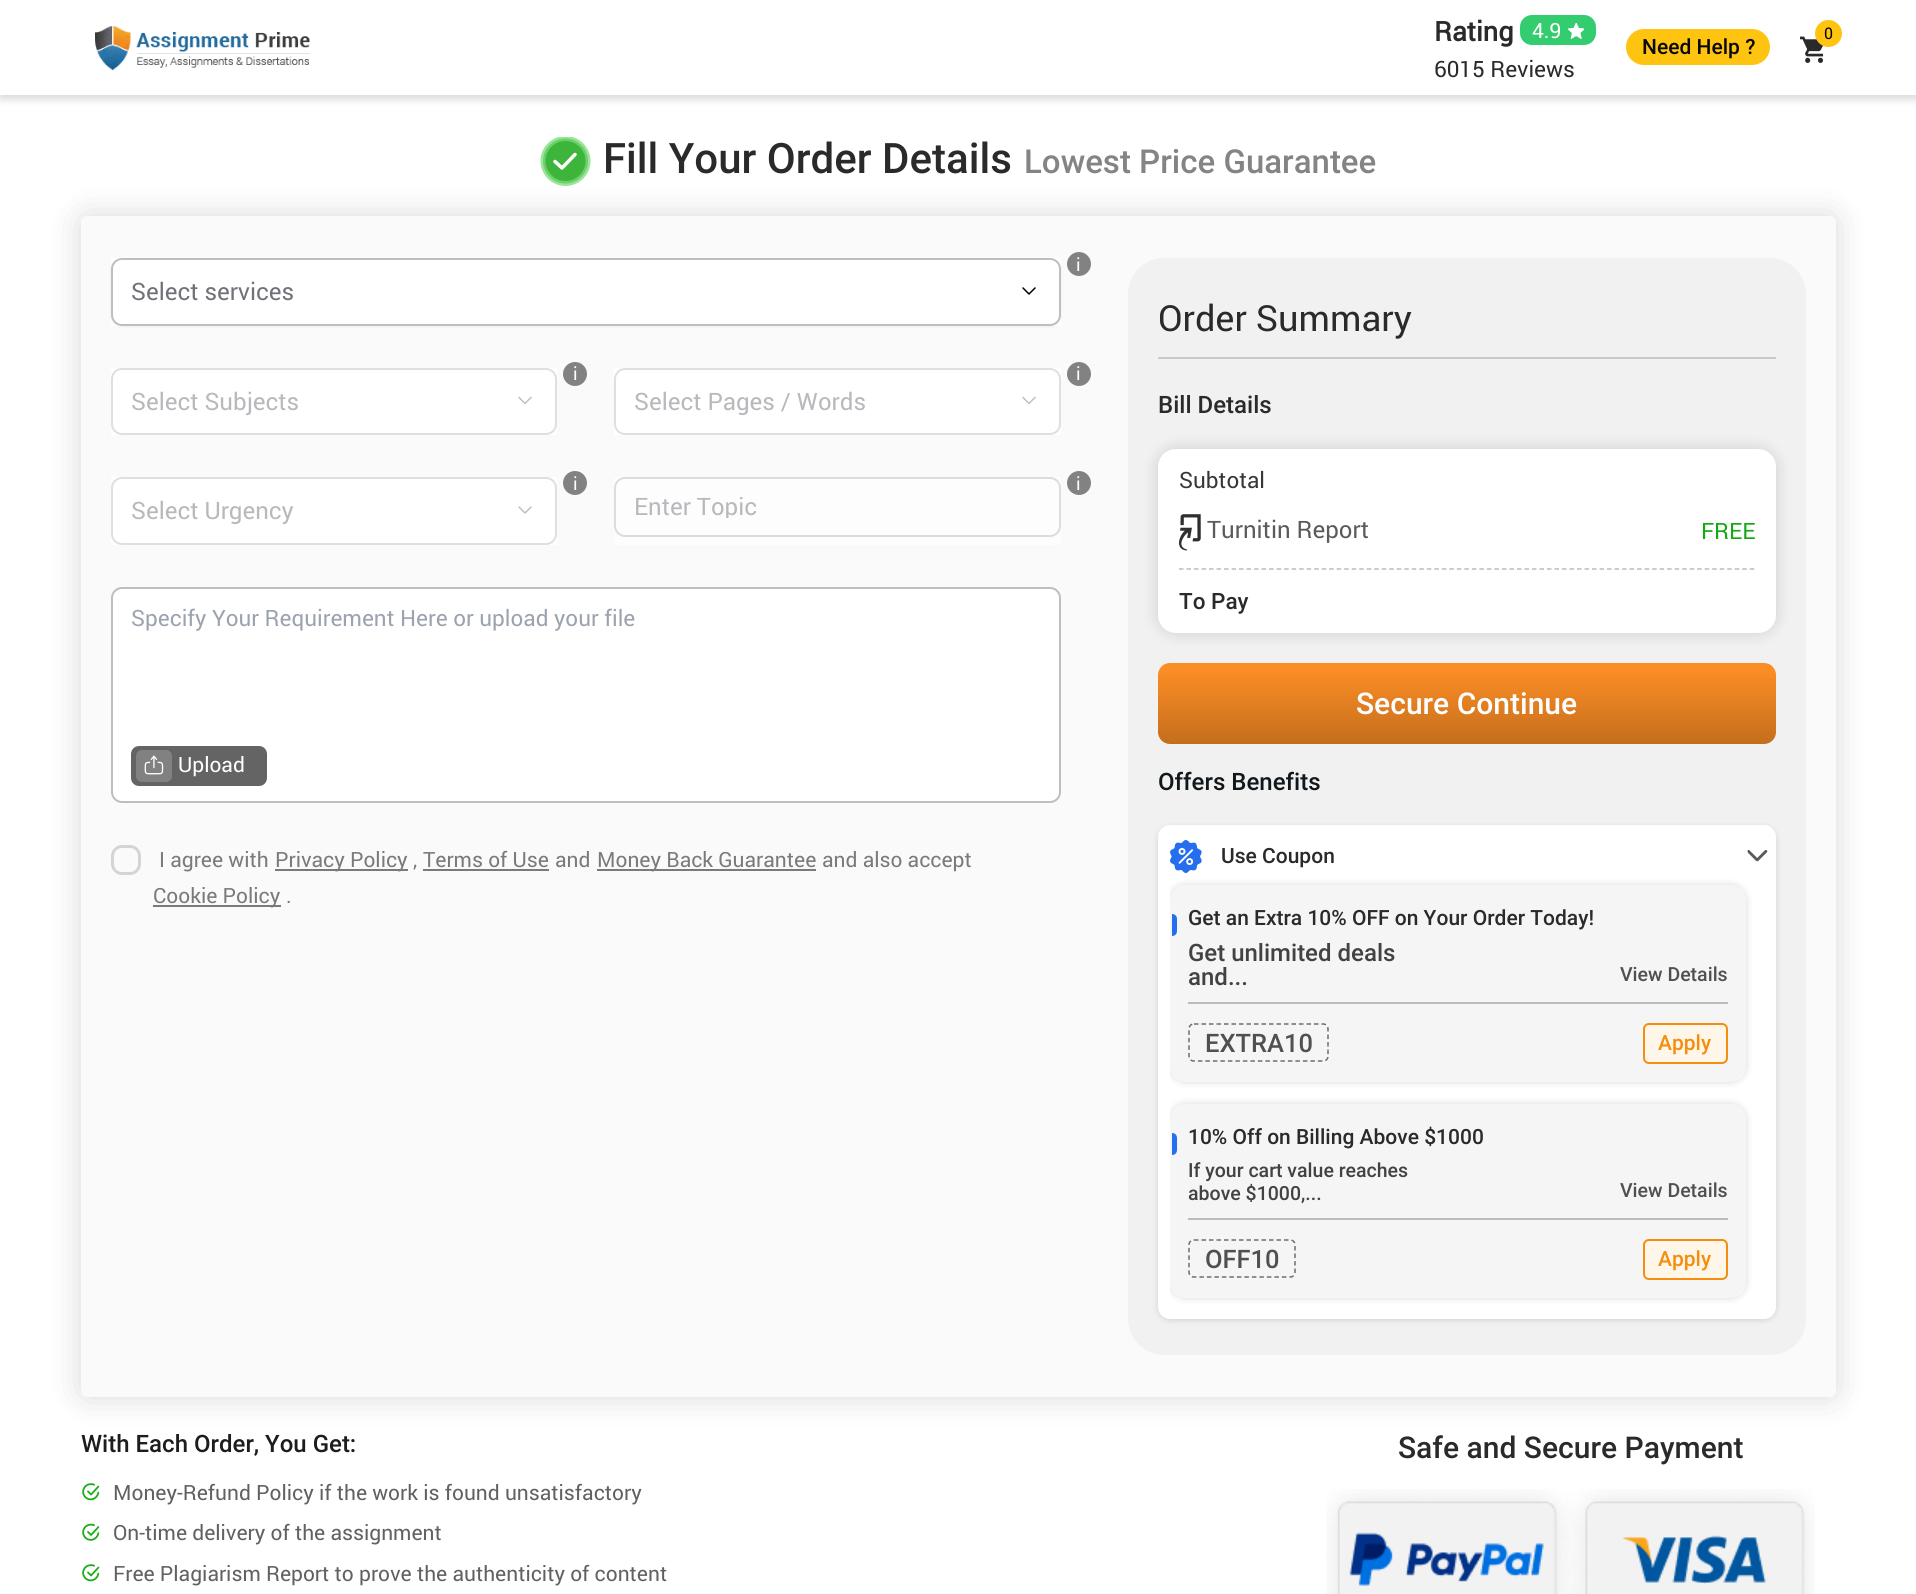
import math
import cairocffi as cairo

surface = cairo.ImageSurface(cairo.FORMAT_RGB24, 1916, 1594)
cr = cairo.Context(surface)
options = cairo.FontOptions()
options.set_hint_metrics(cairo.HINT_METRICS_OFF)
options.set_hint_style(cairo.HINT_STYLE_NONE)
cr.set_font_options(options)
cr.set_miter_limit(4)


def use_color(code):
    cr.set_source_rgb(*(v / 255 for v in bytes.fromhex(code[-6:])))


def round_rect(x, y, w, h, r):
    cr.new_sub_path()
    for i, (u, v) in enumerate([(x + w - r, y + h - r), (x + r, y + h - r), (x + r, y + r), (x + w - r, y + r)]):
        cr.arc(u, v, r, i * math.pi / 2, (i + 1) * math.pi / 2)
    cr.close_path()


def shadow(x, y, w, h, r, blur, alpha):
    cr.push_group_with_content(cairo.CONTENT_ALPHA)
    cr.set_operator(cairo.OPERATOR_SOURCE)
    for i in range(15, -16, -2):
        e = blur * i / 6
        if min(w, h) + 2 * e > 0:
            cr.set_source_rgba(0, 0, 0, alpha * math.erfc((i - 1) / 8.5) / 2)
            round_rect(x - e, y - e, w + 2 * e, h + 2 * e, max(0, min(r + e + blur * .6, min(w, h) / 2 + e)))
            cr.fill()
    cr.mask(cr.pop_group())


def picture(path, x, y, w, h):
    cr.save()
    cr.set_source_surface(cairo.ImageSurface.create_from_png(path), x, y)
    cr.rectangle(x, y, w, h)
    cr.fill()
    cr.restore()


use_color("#ffffff")
cr.paint()
cr.save()
cr.set_fill_rule(cairo.FILL_RULE_EVEN_ODD)
cr.new_path()
cr.move_to(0, 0)
cr.line_to(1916, 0)
cr.line_to(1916, 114)
cr.line_to(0, 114)
cr.close_path()
cr.move_to(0, 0)
cr.line_to(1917, 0)
cr.line_to(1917, 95)
cr.line_to(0, 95)
cr.close_path()
cr.clip()
use_color("#000000")
shadow(0, 5, 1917, 94, 0, 4.5, 0.16)
cr.restore()
picture("img1.png", 95, 26, 215, 45)
cr.select_font_face("Roboto", cairo.FONT_SLANT_NORMAL, cairo.FONT_WEIGHT_BOLD)
cr.set_font_size(27)
use_color("#2a2a2a")
cr.move_to(1434, 41)
cr.show_text("Rating")
use_color("#33cc6f")
round_rect(1520, 15, 76, 30, 12)
cr.fill()
cr.select_font_face("Roboto")
cr.set_font_size(21)
use_color("#ffffff")
cr.move_to(1532, 38)
cr.show_text("4.9")
picture("img2.png", 1568, 23, 16, 16)
cr.set_font_size(22.5)
use_color("#2a2a2a")
cr.move_to(1434, 77)
cr.show_text("6015 Reviews")
picture("img3.png", 1800, 36, 24, 27)
use_color("#ffc410")
cr.arc(1828.5, 33.5, 13.5, 0, 2 * math.pi)
cr.fill()
cr.set_font_size(16)
use_color("#000000")
cr.move_to(1824, 39)
cr.show_text("0")
use_color("#ffc410")
round_rect(1626, 29, 144, 36, 18)
cr.fill()
cr.select_font_face("Roboto Medium")
cr.set_font_size(21)
use_color("#090909")
cr.move_to(1642, 54)
cr.show_text("Need Help ?")
use_color("#000000")
shadow(81, 216, 1755, 1181, 6, 16.5, 0.15)
cr.save()
cr.rectangle(540, 137, 51, 49)
cr.clip()
use_color("#98e796")
cr.arc(565.5, 161, 25, 0, 2 * math.pi)
cr.fill()
cr.restore()
use_color("#6ecd6c")
cr.arc(565.5, 161, 22.5, 0, 2 * math.pi)
cr.fill()
use_color("#3db53a")
cr.arc(565.5, 161, 20, 0, 2 * math.pi)
cr.fill()
cr.new_path()
cr.move_to(555, 161.5)
cr.line_to(562, 168)
cr.line_to(575, 154.5)
use_color("#ffffff")
cr.set_line_width(3.5)
cr.set_line_cap(cairo.LINE_CAP_ROUND)
cr.set_line_join(cairo.LINE_JOIN_ROUND)
cr.stroke()
cr.set_font_size(42)
use_color("#2a2a2a")
cr.move_to(603, 173)
cr.show_text("Fill Your Order Details")
cr.set_font_size(33)
use_color("#848484")
cr.move_to(1024, 173)
cr.show_text("Lowest Price Guarantee")
use_color("#fafafa")
round_rect(81, 216, 1755, 1181, 6)
cr.fill()
use_color("#828282")
cr.arc(1079, 264, 12, 0, 2 * math.pi)
cr.fill()
cr.select_font_face("Roboto")
cr.set_font_size(18)
use_color("#ffffff")
cr.move_to(1076, 271)
cr.show_text("i")
cr.rectangle(111, 258, 950, 68)
cr.fill()
use_color("#000000")
shadow(111, 260, 950, 67, 11, 1.5, 0.05)
use_color("#ffffff")
round_rect(112, 259, 948, 66, 10)
cr.fill_preserve()
use_color("#bebebe")
cr.set_line_width(2)
cr.set_line_cap(cairo.LINE_CAP_BUTT)
cr.set_line_join(cairo.LINE_JOIN_MITER)
cr.stroke()
cr.set_font_size(24)
use_color("#71717a")
cr.move_to(131, 300)
cr.show_text("Select services")
cr.new_path()
cr.move_to(1023, 288)
cr.line_to(1029, 294)
cr.line_to(1035, 288)
use_color("#000000")
cr.set_line_width(1.5)
cr.set_line_cap(cairo.LINE_CAP_ROUND)
cr.set_line_join(cairo.LINE_JOIN_ROUND)
cr.stroke()
use_color("#828282")
cr.arc(575, 374, 12, 0, 2 * math.pi)
cr.fill()
cr.set_font_size(18)
use_color("#ffffff")
cr.move_to(573, 380)
cr.show_text("i")
cr.rectangle(111, 368, 446, 67)
cr.fill()
round_rect(112, 369, 444, 65, 10)
use_color("#dfdfdf")
cr.set_line_width(2)
cr.set_line_cap(cairo.LINE_CAP_BUTT)
cr.set_line_join(cairo.LINE_JOIN_MITER)
cr.stroke()
cr.set_font_size(24)
use_color("#b8b8bd")
cr.move_to(131, 410)
cr.show_text("Select Subjects")
cr.new_path()
cr.move_to(519, 397.5)
cr.line_to(525, 403.5)
cr.line_to(531, 397.5)
use_color("#bfbfbf")
cr.set_line_width(1.5)
cr.set_line_cap(cairo.LINE_CAP_ROUND)
cr.set_line_join(cairo.LINE_JOIN_ROUND)
cr.stroke()
use_color("#828282")
cr.arc(1079, 374, 12, 0, 2 * math.pi)
cr.fill()
cr.set_font_size(18)
use_color("#ffffff")
cr.move_to(1076, 380)
cr.show_text("i")
cr.rectangle(614, 368, 447, 67)
cr.fill()
round_rect(615, 369, 445, 65, 10)
use_color("#dfdfdf")
cr.set_line_width(2)
cr.set_line_cap(cairo.LINE_CAP_BUTT)
cr.set_line_join(cairo.LINE_JOIN_MITER)
cr.stroke()
cr.set_font_size(24)
use_color("#b8b8bd")
cr.move_to(634, 410)
cr.show_text("Select Pages / Words")
cr.new_path()
cr.move_to(1023, 397.5)
cr.line_to(1029, 403.5)
cr.line_to(1035, 397.5)
use_color("#bfbfbf")
cr.set_line_width(1.5)
cr.set_line_cap(cairo.LINE_CAP_ROUND)
cr.set_line_join(cairo.LINE_JOIN_ROUND)
cr.stroke()
use_color("#828282")
cr.arc(575, 483, 12, 0, 2 * math.pi)
cr.fill()
cr.set_font_size(18)
use_color("#ffffff")
cr.move_to(573, 490)
cr.show_text("i")
cr.rectangle(111, 477, 446, 68)
cr.fill()
round_rect(112, 478, 444, 66, 10)
use_color("#dfdfdf")
cr.set_line_width(2)
cr.set_line_cap(cairo.LINE_CAP_BUTT)
cr.set_line_join(cairo.LINE_JOIN_MITER)
cr.stroke()
cr.set_font_size(24)
use_color("#b8b8bd")
cr.move_to(131, 519)
cr.show_text("Select Urgency")
cr.new_path()
cr.move_to(519, 507)
cr.line_to(525, 513)
cr.line_to(531, 507)
use_color("#bfbfbf")
cr.set_line_width(1.5)
cr.set_line_cap(cairo.LINE_CAP_ROUND)
cr.set_line_join(cairo.LINE_JOIN_ROUND)
cr.stroke()
use_color("#828282")
cr.arc(1079, 483, 12, 0, 2 * math.pi)
cr.fill()
cr.set_font_size(18)
use_color("#ffffff")
cr.move_to(1076, 490)
cr.show_text("i")
use_color("#fdfdfd")
cr.rectangle(614, 477, 447, 68)
cr.fill()
round_rect(615, 478, 445, 58, 10)
use_color("#dcdcdc")
cr.set_line_width(2)
cr.set_line_cap(cairo.LINE_CAP_BUTT)
cr.set_line_join(cairo.LINE_JOIN_MITER)
cr.stroke()
cr.save()
cr.rectangle(633, 497, 408, 21)
cr.clip()
cr.set_font_size(24)
use_color("#b8b8bd")
cr.move_to(634, 515)
cr.show_text("Enter Topic")
cr.restore()
use_color("#ffffff")
round_rect(112, 588, 948, 214, 10)
cr.fill_preserve()
use_color("#bebebe")
cr.stroke()
cr.set_font_size(22.5)
use_color("#9ca3af")
cr.move_to(131, 626)
cr.show_text("Specify Your Requirement Here or upload your file")
use_color("#646464")
round_rect(131, 746, 136, 40, 8)
cr.fill()
picture("img4.png", 136, 750, 36, 32)
cr.set_font_size(21)
use_color("#ffffff")
cr.move_to(178, 772)
cr.show_text("Upload")
round_rect(112.5, 846.5, 27, 27, 9.5)
use_color("#d4d4d8")
cr.set_line_width(3)
cr.stroke()
use_color("#7a7a7a")
cr.move_to(159, 867)
cr.show_text("I agree with")
cr.rectangle(275, 869, 133, 2)
cr.fill()
cr.move_to(275, 867)
cr.show_text("Privacy Policy")
cr.move_to(413, 867)
cr.show_text(",")
cr.move_to(423, 867)
cr.show_text("Terms of Use")
cr.rectangle(423, 869, 126, 2)
cr.fill()
cr.move_to(555, 867)
cr.show_text("and")
cr.rectangle(597, 869, 219, 2)
cr.fill()
cr.move_to(597, 867)
cr.show_text("Money Back Guarantee")
cr.move_to(822, 867)
cr.show_text("and also accept")
cr.rectangle(153, 905, 128, 2)
cr.fill()
cr.move_to(153, 903)
cr.show_text("Cookie Policy")
cr.move_to(286, 903)
cr.show_text(".")
use_color("#f1f1f1")
round_rect(1128, 258, 678, 1097, 36)
cr.fill()
use_color("#c9c9c9")
cr.rectangle(1158, 357, 618, 2)
cr.fill()
cr.set_font_size(36)
use_color("#2a2a2a")
cr.move_to(1158, 331)
cr.show_text("Order Summary")
cr.select_font_face("Roboto Medium")
cr.set_font_size(24)
cr.move_to(1158, 413)
cr.show_text("Bill Details")
use_color("#000000")
shadow(1158, 449, 618, 184, 18, 8, 0.15)
use_color("#ffffff")
round_rect(1158, 449, 618, 184, 18)
cr.fill()
cr.select_font_face("Roboto")
cr.set_font_size(22.5)
use_color("#373737")
cr.move_to(1179, 488)
cr.show_text("Subtotal")
cr.new_path()
cr.move_to(1179, 569)
cr.line_to(1755, 569)
use_color("#bbbbbb")
cr.set_line_width(1.5)
cr.set_dash([4.5, 3.01])
cr.stroke()
picture("img5.png", 1179, 514, 22, 37)
cr.set_font_size(24)
use_color("#5b5b5b")
cr.move_to(1207, 538)
cr.show_text("Turnitin Report")
cr.set_font_size(22.5)
use_color("#16a813")
cr.move_to(1701, 539)
cr.show_text("FREE")
cr.select_font_face("Roboto Medium")
use_color("#2a2a2a")
cr.move_to(1179, 609)
cr.show_text("To Pay")
gradient = cairo.LinearGradient(1467, 663, 1467, 744)
gradient.add_color_stop_rgba(0.09, 0.984, 0.553, 0.145, 1)
gradient.add_color_stop_rgba(1, 0.769, 0.431, 0.114, 1)
cr.set_source(gradient)
round_rect(1158, 663, 618, 81, 12)
cr.fill()
cr.set_font_size(30)
use_color("#ffffff")
cr.move_to(1356, 714)
cr.show_text("Secure Continue")
cr.set_font_size(24)
use_color("#11181c")
cr.move_to(1158, 790)
cr.show_text("Offers Benefits")
use_color("#000000")
shadow(1158, 827, 618, 493, 12, 3, 0.14)
use_color("#ffffff")
round_rect(1158, 825, 618, 494, 12)
cr.fill()
picture("img6.png", 1170, 840, 32, 33)
cr.set_font_size(21)
use_color("#2a2a2a")
cr.move_to(1221, 863)
cr.show_text("Use Coupon")
picture("img7.png", 1747, 849, 21, 13)
cr.save()
cr.rectangle(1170, 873, 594, 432)
cr.clip()
use_color("#000000")
shadow(1170, 885, 576, 197, 15, 4, 0.15)
cr.restore()
use_color("#f5f5f5")
round_rect(1170, 885, 576, 197, 15)
cr.fill()
use_color("#256fee")
cr.new_path()
cr.move_to(1172, 914)
cr.curve_to(1175, 914, 1177, 916, 1177, 919)
cr.line_to(1177, 931)
cr.curve_to(1177, 934, 1175, 936, 1172, 936)
cr.close_path()
cr.fill()
use_color("#2a2a2a")
cr.move_to(1188, 925)
cr.show_text("Get an Extra 10% OFF on Your Order Today!")
use_color("#bbbbbb")
cr.rectangle(1188, 1002, 540, 2)
cr.fill()
cr.set_font_size(24)
use_color("#424242")
cr.move_to(1188, 961)
cr.show_text("Get unlimited deals")
cr.move_to(1188, 985)
cr.show_text("and...")
cr.set_font_size(19.5)
use_color("#505050")
cr.move_to(1620, 981)
cr.show_text("View Details")
cr.new_path()
cr.move_to(1194, 1024)
cr.line_to(1323, 1024)
cr.curve_to(1326, 1024, 1328, 1026, 1328, 1029)
cr.line_to(1328, 1056)
cr.curve_to(1328, 1059, 1326, 1061, 1323, 1061)
cr.line_to(1194, 1061)
cr.curve_to(1191, 1061, 1189, 1059, 1189, 1056)
cr.line_to(1189, 1029)
cr.curve_to(1189, 1026, 1191, 1024, 1194, 1024)
cr.close_path()
use_color("#6c6c6c")
cr.set_dash([4.5, 3])
cr.stroke()
cr.set_font_size(25.5)
use_color("#505050")
cr.move_to(1205, 1052)
cr.show_text("EXTRA10")
use_color("#fff6ea")
round_rect(1644, 1024, 83, 39, 5)
cr.fill_preserve()
use_color("#f58e0e")
cr.set_line_width(2)
cr.set_dash([])
cr.stroke()
cr.set_font_size(21)
cr.move_to(1658, 1050)
cr.show_text("Apply")
cr.save()
cr.rectangle(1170, 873, 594, 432)
cr.clip()
use_color("#000000")
shadow(1170, 1104, 576, 194, 15, 4, 0.15)
cr.restore()
use_color("#f5f5f5")
round_rect(1170, 1104, 576, 194, 15)
cr.fill()
use_color("#256fee")
cr.new_path()
cr.move_to(1172, 1133)
cr.curve_to(1175, 1133, 1177, 1135, 1177, 1138)
cr.line_to(1177, 1150)
cr.curve_to(1177, 1153, 1175, 1155, 1172, 1155)
cr.close_path()
cr.fill()
use_color("#2a2a2a")
cr.move_to(1188, 1144)
cr.show_text("10% Off on Billing Above $1000")
use_color("#bbbbbb")
cr.rectangle(1188, 1218, 540, 2)
cr.fill()
cr.set_font_size(19.5)
use_color("#424242")
cr.move_to(1188, 1177)
cr.show_text("If your cart value reaches")
cr.move_to(1188, 1200)
cr.show_text("above $1000,...")
use_color("#505050")
cr.move_to(1620, 1197)
cr.show_text("View Details")
cr.new_path()
cr.move_to(1194, 1240)
cr.line_to(1290, 1240)
cr.curve_to(1293, 1240, 1295, 1242, 1295, 1245)
cr.line_to(1295, 1272)
cr.curve_to(1295, 1275, 1293, 1277, 1290, 1277)
cr.line_to(1194, 1277)
cr.curve_to(1191, 1277, 1189, 1275, 1189, 1272)
cr.line_to(1189, 1245)
cr.curve_to(1189, 1242, 1191, 1240, 1194, 1240)
cr.close_path()
use_color("#6c6c6c")
cr.set_line_width(1.5)
cr.set_dash([4.5, 3])
cr.stroke()
cr.set_font_size(25.5)
use_color("#505050")
cr.move_to(1205, 1268)
cr.show_text("OFF10")
use_color("#fff6ea")
round_rect(1644, 1240, 83, 39, 5)
cr.fill_preserve()
use_color("#f58e0e")
cr.set_line_width(2)
cr.set_dash([])
cr.stroke()
cr.set_font_size(21)
cr.move_to(1658, 1266)
cr.show_text("Apply")
cr.set_font_size(24)
use_color("#1d1d1d")
cr.move_to(81, 1452)
cr.show_text("With Each Order, You Get:")
picture("img8.png", 82, 1483, 18, 18)
cr.select_font_face("Roboto")
cr.set_font_size(21)
use_color("#616161")
cr.move_to(113, 1500)
cr.show_text("Money-Refund Policy if the work is found unsatisfactory")
picture("img9.png", 82, 1523, 18, 18)
cr.move_to(113, 1540)
cr.show_text("On-time delivery of the assignment")
picture("img8.png", 82, 1564, 18, 18)
cr.move_to(113, 1581)
cr.show_text("Free Plagiarism Report to prove the authenticity of content")
cr.select_font_face("Roboto Medium")
cr.set_font_size(30)
use_color("#2a2a2a")
cr.move_to(1398, 1458)
cr.show_text("Safe and Secure Payment")
picture("img10.png", 1326, 1489, 489, 105)
surface.write_to_png("result.png")
